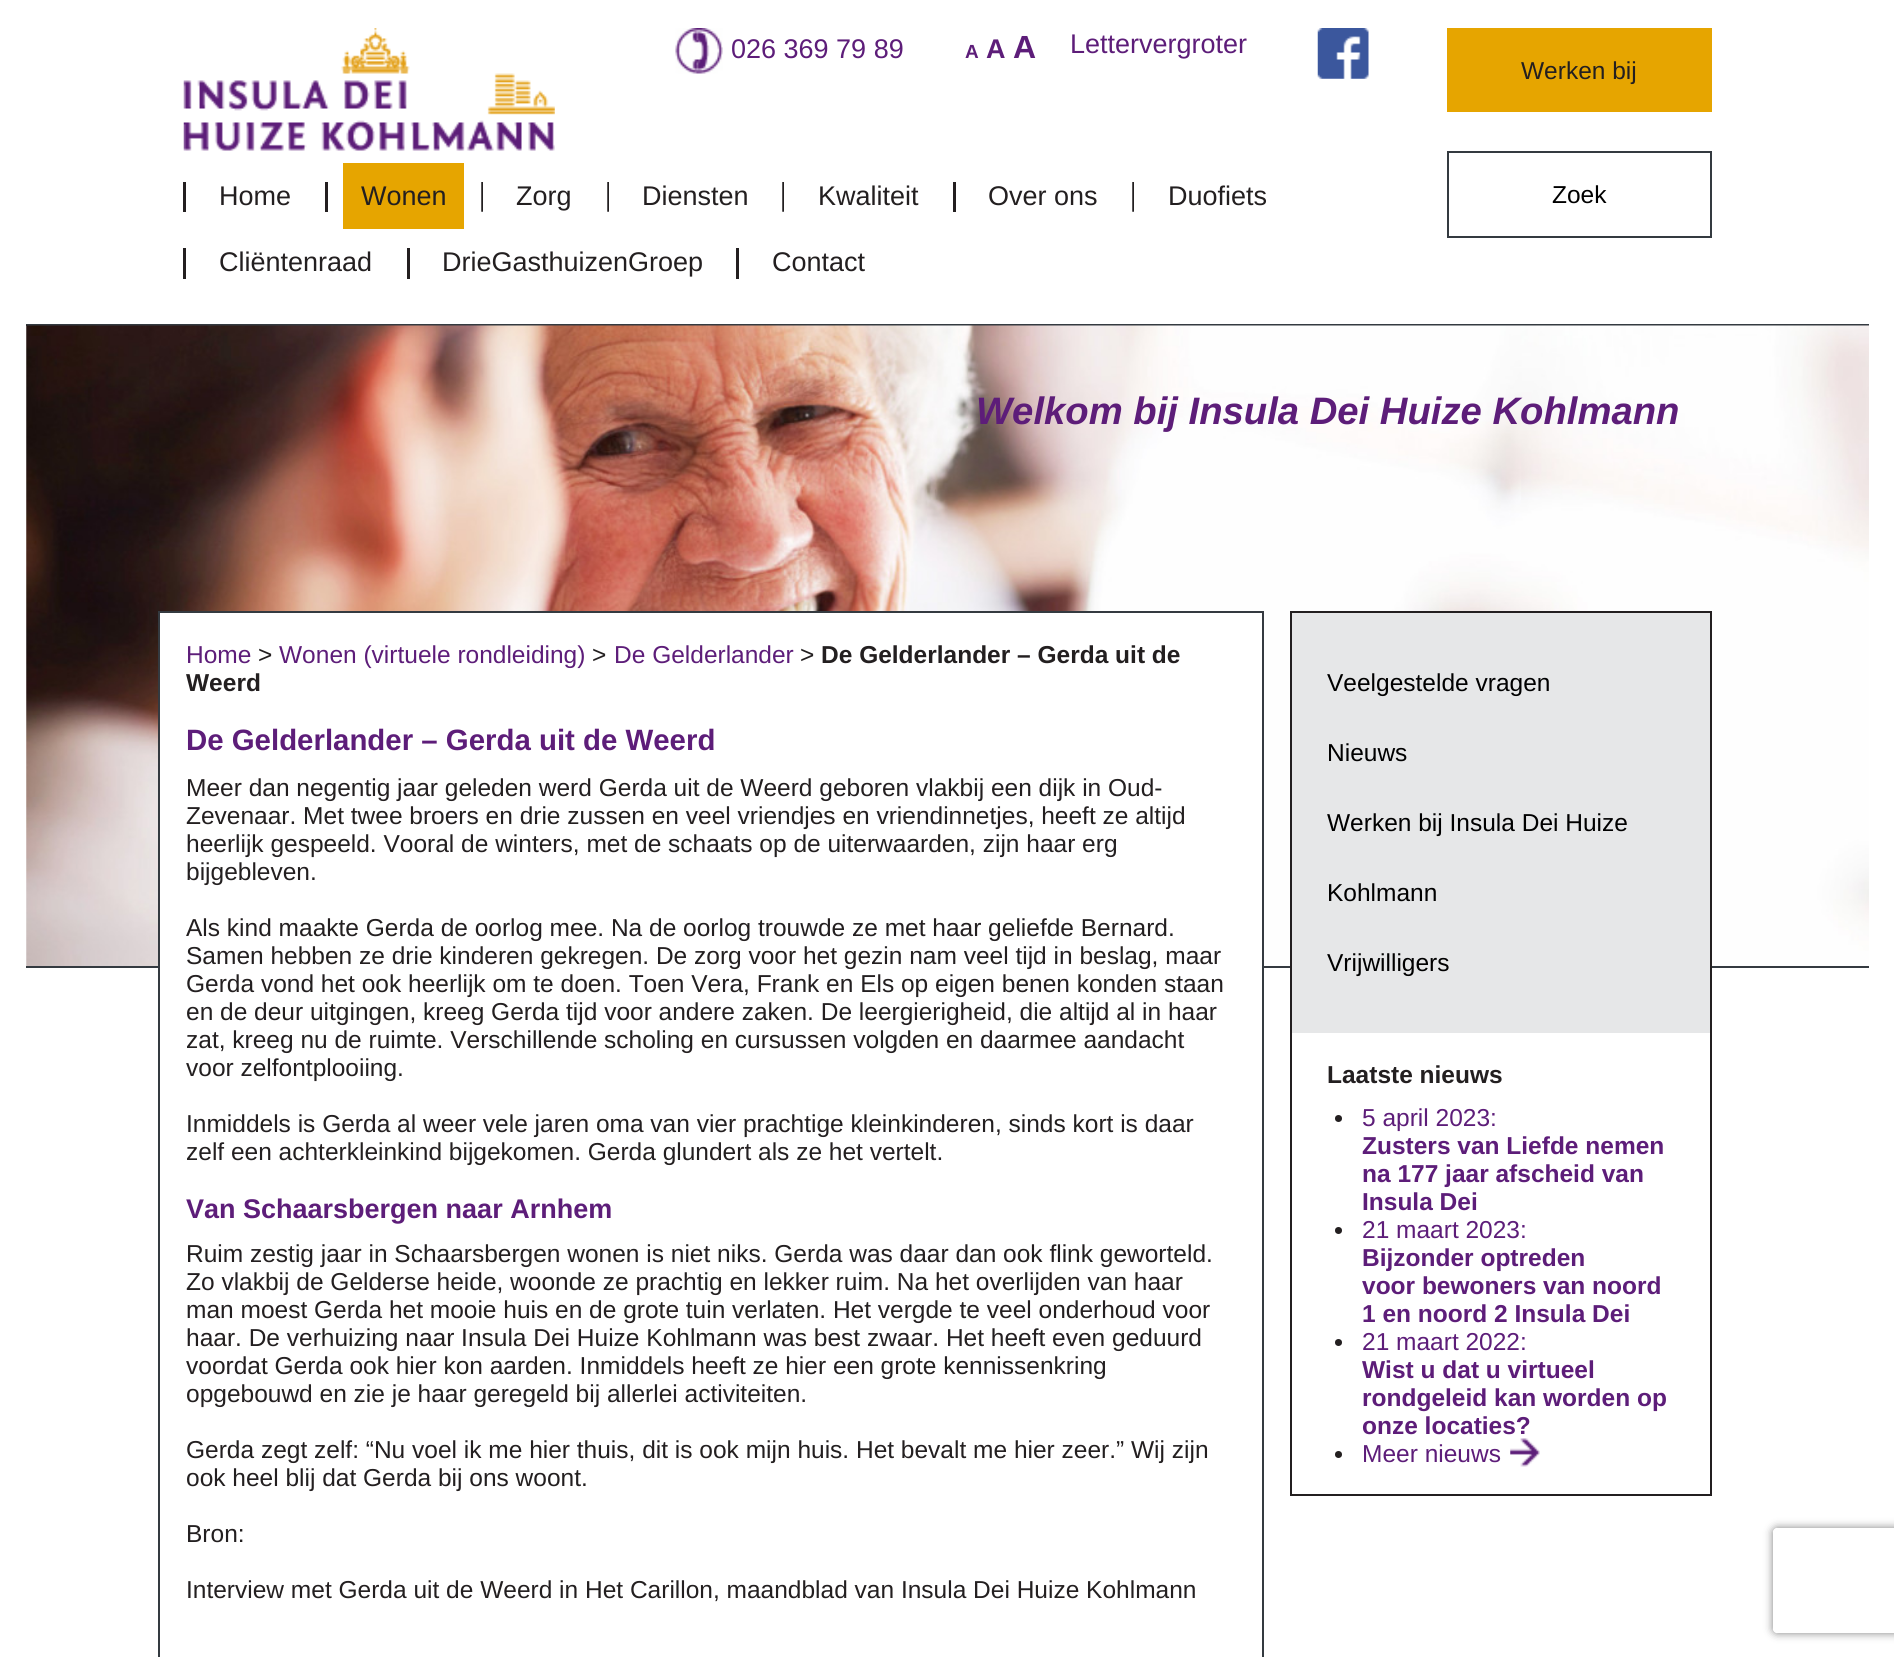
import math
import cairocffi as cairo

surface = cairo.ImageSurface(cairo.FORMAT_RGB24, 1894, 1657)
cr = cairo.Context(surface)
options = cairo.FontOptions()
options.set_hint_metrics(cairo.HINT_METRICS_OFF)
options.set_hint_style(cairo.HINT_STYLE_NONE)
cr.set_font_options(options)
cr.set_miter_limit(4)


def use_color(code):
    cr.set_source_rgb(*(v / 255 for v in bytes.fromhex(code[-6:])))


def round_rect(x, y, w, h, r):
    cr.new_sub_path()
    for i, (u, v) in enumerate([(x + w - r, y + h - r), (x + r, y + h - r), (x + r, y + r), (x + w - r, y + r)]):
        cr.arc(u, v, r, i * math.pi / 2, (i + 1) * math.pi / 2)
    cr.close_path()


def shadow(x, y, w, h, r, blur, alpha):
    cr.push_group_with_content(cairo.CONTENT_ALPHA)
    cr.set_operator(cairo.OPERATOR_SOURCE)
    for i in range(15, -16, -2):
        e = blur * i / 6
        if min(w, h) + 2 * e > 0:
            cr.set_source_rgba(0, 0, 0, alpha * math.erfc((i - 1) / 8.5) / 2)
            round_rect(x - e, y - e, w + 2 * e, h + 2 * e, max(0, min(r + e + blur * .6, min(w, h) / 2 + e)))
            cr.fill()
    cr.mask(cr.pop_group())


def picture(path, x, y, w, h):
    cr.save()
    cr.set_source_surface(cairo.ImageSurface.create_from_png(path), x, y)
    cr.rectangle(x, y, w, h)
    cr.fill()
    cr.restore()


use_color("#ffffff")
cr.paint()
picture("img1.png", 183, 28, 372, 123)
picture("img2.png", 675, 28, 48, 46)
cr.select_font_face("Liberation Sans")
cr.set_font_size(27)
use_color("#5d1d79")
cr.move_to(731, 58)
cr.show_text("026 369 79 89")
cr.select_font_face("Liberation Sans", cairo.FONT_SLANT_NORMAL, cairo.FONT_WEIGHT_BOLD)
cr.set_font_size(19)
cr.move_to(965, 58)
cr.show_text("A")
cr.set_font_size(27)
cr.move_to(986, 58)
cr.show_text("A")
cr.set_font_size(32)
cr.move_to(1013, 58)
cr.show_text("A")
cr.select_font_face("Liberation Sans")
cr.set_font_size(27)
cr.move_to(1070, 53)
cr.show_text("Lettervergroter")
picture("img3.png", 1317, 28, 52, 51)
use_color("#e6a500")
cr.rectangle(1447, 28, 265, 84)
cr.fill()
cr.set_font_size(24.5)
use_color("#231f20")
cr.move_to(1521, 79)
cr.show_text("Werken bij")
cr.rectangle(183, 182, 3, 30)
cr.fill()
cr.set_font_size(27)
cr.move_to(219, 205)
cr.show_text("Home")
cr.rectangle(325, 182, 3, 30)
cr.fill()
use_color("#e6a500")
cr.rectangle(343, 163, 121, 66)
cr.fill()
use_color("#231f20")
cr.move_to(361, 205)
cr.show_text("Wonen")
picture("img4.png", 481, 182, 2, 30)
cr.move_to(516, 205)
cr.show_text("Zorg")
picture("img4.png", 607, 182, 2, 30)
cr.move_to(642, 205)
cr.show_text("Diensten")
picture("img4.png", 782, 182, 2, 30)
cr.move_to(818, 205)
cr.show_text("Kwaliteit")
cr.rectangle(953, 182, 3, 30)
cr.fill()
cr.move_to(988, 205)
cr.show_text("Over ons")
picture("img4.png", 1132, 182, 2, 30)
cr.move_to(1168, 205)
cr.show_text("Duofiets")
cr.rectangle(183, 248, 3, 31)
cr.fill()
cr.move_to(219, 271)
cr.show_text("Cliëntenraad")
cr.rectangle(407, 248, 3, 31)
cr.fill()
cr.move_to(442, 271)
cr.show_text("DrieGasthuizenGroep")
cr.rectangle(736, 248, 3, 31)
cr.fill()
cr.move_to(772, 271)
cr.show_text("Contact")
cr.rectangle(1448, 152, 263, 85)
use_color("#343a40")
cr.stroke()
cr.set_font_size(24.5)
use_color("#000000")
cr.move_to(1552, 203)
cr.show_text("Zoek")
use_color("#343a40")
cr.rectangle(26, 324, 1843, 2)
cr.fill()
cr.rectangle(26, 966, 1843, 2)
cr.fill()
picture("img5.png", 26, 325, 1843, 641)
cr.select_font_face("Liberation Sans", cairo.FONT_SLANT_ITALIC, cairo.FONT_WEIGHT_BOLD)
cr.set_font_size(38.25)
use_color("#5d1d79")
cr.move_to(976, 424)
cr.show_text("Welkom bij Insula Dei Huize Kohlmann")
use_color("#ffffff")
cr.rectangle(160, 613, 1102, 355)
cr.fill()
cr.rectangle(159, 612, 1104, 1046)
use_color("#343a40")
cr.stroke()
cr.select_font_face("Liberation Sans")
cr.set_font_size(24.5)
use_color("#5d1d79")
cr.move_to(186, 663)
cr.show_text("Home")
use_color("#231f20")
cr.move_to(258, 663)
cr.show_text(">")
use_color("#5d1d79")
cr.move_to(279, 663)
cr.show_text("Wonen (virtuele rondleiding)")
use_color("#231f20")
cr.move_to(592, 663)
cr.show_text(">")
use_color("#5d1d79")
cr.move_to(614, 663)
cr.show_text("De Gelderlander")
use_color("#231f20")
cr.move_to(800, 663)
cr.show_text(">")
cr.select_font_face("Liberation Sans", cairo.FONT_SLANT_NORMAL, cairo.FONT_WEIGHT_BOLD)
cr.move_to(821, 663)
cr.show_text("De Gelderlander – Gerda uit de")
cr.move_to(186, 691)
cr.show_text("Weerd")
cr.set_font_size(29.4)
use_color("#5d1d79")
cr.move_to(186, 750)
cr.show_text("De Gelderlander – Gerda uit de Weerd")
cr.select_font_face("Liberation Sans")
cr.set_font_size(24.5)
use_color("#231f20")
cr.move_to(186, 796)
cr.show_text("Meer dan negentig jaar geleden werd Gerda uit de Weerd geboren vlakbij een dijk in Oud-")
cr.move_to(186, 824)
cr.show_text("Zevenaar. Met twee broers en drie zussen en veel vriendjes en vriendinnetjes, heeft ze altijd")
cr.move_to(186, 852)
cr.show_text("heerlijk gespeeld. Vooral de winters, met de schaats op de uiterwaarden, zijn haar erg")
cr.move_to(186, 880)
cr.show_text("bijgebleven.")
cr.move_to(186, 936)
cr.show_text("Als kind maakte Gerda de oorlog mee. Na de oorlog trouwde ze met haar geliefde Bernard.")
cr.move_to(186, 964)
cr.show_text("Samen hebben ze drie kinderen gekregen. De zorg voor het gezin nam veel tijd in beslag, maar")
cr.move_to(186, 992)
cr.show_text("Gerda vond het ook heerlijk om te doen. Toen Vera, Frank en Els op eigen benen konden staan")
cr.move_to(186, 1020)
cr.show_text("en de deur uitgingen, kreeg Gerda tijd voor andere zaken. De leergierigheid, die altijd al in haar")
cr.move_to(186, 1048)
cr.show_text("zat, kreeg nu de ruimte. Verschillende scholing en cursussen volgden en daarmee aandacht")
cr.move_to(186, 1076)
cr.show_text("voor zelfontplooiing.")
cr.move_to(186, 1132)
cr.show_text("Inmiddels is Gerda al weer vele jaren oma van vier prachtige kleinkinderen, sinds kort is daar")
cr.move_to(186, 1160)
cr.show_text("zelf een achterkleinkind bijgekomen. Gerda glundert als ze het vertelt.")
cr.select_font_face("Liberation Sans", cairo.FONT_SLANT_NORMAL, cairo.FONT_WEIGHT_BOLD)
cr.set_font_size(27)
use_color("#5d1d79")
cr.move_to(186, 1218)
cr.show_text("Van Schaarsbergen naar Arnhem")
cr.select_font_face("Liberation Sans")
cr.set_font_size(24.5)
use_color("#231f20")
cr.move_to(186, 1262)
cr.show_text("Ruim zestig jaar in Schaarsbergen wonen is niet niks. Gerda was daar dan ook flink geworteld.")
cr.move_to(186, 1290)
cr.show_text("Zo vlakbij de Gelderse heide, woonde ze prachtig en lekker ruim. Na het overlijden van haar")
cr.move_to(186, 1318)
cr.show_text("man moest Gerda het mooie huis en de grote tuin verlaten. Het vergde te veel onderhoud voor")
cr.move_to(186, 1346)
cr.show_text("haar. De verhuizing naar Insula Dei Huize Kohlmann was best zwaar. Het heeft even geduurd")
cr.move_to(186, 1374)
cr.show_text("voordat Gerda ook hier kon aarden. Inmiddels heeft ze hier een grote kennissenkring")
cr.move_to(186, 1402)
cr.show_text("opgebouwd en zie je haar geregeld bij allerlei activiteiten.")
cr.move_to(186, 1458)
cr.show_text("Gerda zegt zelf: “Nu voel ik me hier thuis, dit is ook mijn huis. Het bevalt me hier zeer.” Wij zijn")
cr.move_to(186, 1486)
cr.show_text("ook heel blij dat Gerda bij ons woont.")
cr.move_to(186, 1542)
cr.show_text("Bron:")
cr.move_to(186, 1598)
cr.show_text("Interview met Gerda uit de Weerd in Het Carillon, maandblad van Insula Dei Huize Kohlmann")
cr.rectangle(1291, 612, 420, 883)
cr.stroke()
use_color("#e6e7e8")
cr.rectangle(1292, 613, 418, 420)
cr.fill()
use_color("#000000")
cr.move_to(1327, 691)
cr.show_text("Veelgestelde vragen")
cr.move_to(1327, 761)
cr.show_text("Nieuws")
cr.move_to(1327, 831)
cr.show_text("Werken bij Insula Dei Huize")
cr.move_to(1327, 901)
cr.show_text("Kohlmann")
cr.move_to(1327, 971)
cr.show_text("Vrijwilligers")
cr.select_font_face("Liberation Sans", cairo.FONT_SLANT_NORMAL, cairo.FONT_WEIGHT_BOLD)
use_color("#231f20")
cr.move_to(1327, 1083)
cr.show_text("Laatste nieuws")
cr.new_path()
cr.arc(1338.5, 1118.5, 3.5, 0, 2 * math.pi)
cr.fill()
cr.select_font_face("Liberation Sans")
use_color("#5d1d79")
cr.move_to(1362, 1126)
cr.show_text("5 april 2023:")
cr.select_font_face("Liberation Sans", cairo.FONT_SLANT_NORMAL, cairo.FONT_WEIGHT_BOLD)
cr.move_to(1362, 1154)
cr.show_text("Zusters van Liefde nemen")
cr.move_to(1362, 1182)
cr.show_text("na 177 jaar afscheid van")
cr.move_to(1362, 1210)
cr.show_text("Insula Dei")
use_color("#231f20")
cr.new_path()
cr.arc(1338.5, 1230.5, 3.5, 0, 2 * math.pi)
cr.fill()
cr.select_font_face("Liberation Sans")
use_color("#5d1d79")
cr.move_to(1362, 1238)
cr.show_text("21 maart 2023:")
cr.select_font_face("Liberation Sans", cairo.FONT_SLANT_NORMAL, cairo.FONT_WEIGHT_BOLD)
cr.move_to(1362, 1266)
cr.show_text("Bijzonder optreden")
cr.move_to(1362, 1294)
cr.show_text("voor bewoners van noord")
cr.move_to(1362, 1322)
cr.show_text("1 en noord 2 Insula Dei")
use_color("#231f20")
cr.new_path()
cr.arc(1338.5, 1342.5, 3.5, 0, 2 * math.pi)
cr.fill()
cr.select_font_face("Liberation Sans")
use_color("#5d1d79")
cr.move_to(1362, 1350)
cr.show_text("21 maart 2022:")
cr.select_font_face("Liberation Sans", cairo.FONT_SLANT_NORMAL, cairo.FONT_WEIGHT_BOLD)
cr.move_to(1362, 1378)
cr.show_text("Wist u dat u virtueel")
cr.move_to(1362, 1406)
cr.show_text("rondgeleid kan worden op")
cr.move_to(1362, 1434)
cr.show_text("onze locaties?")
use_color("#231f20")
cr.new_path()
cr.arc(1338.5, 1454.5, 3.5, 0, 2 * math.pi)
cr.fill()
cr.select_font_face("Liberation Sans")
use_color("#5d1d79")
cr.move_to(1362, 1462)
cr.show_text("Meer nieuws")
picture("img6.png", 1510, 1438, 30, 29)
cr.save()
cr.set_fill_rule(cairo.FILL_RULE_EVEN_ODD)
cr.new_path()
cr.move_to(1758, 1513)
cr.line_to(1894, 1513)
cr.line_to(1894, 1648)
cr.line_to(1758, 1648)
cr.close_path()
cr.move_to(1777, 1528)
cr.line_to(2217, 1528)
cr.curve_to(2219, 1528, 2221, 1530, 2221, 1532)
cr.line_to(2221, 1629)
cr.curve_to(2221, 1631, 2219, 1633, 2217, 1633)
cr.line_to(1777, 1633)
cr.curve_to(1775, 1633, 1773, 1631, 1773, 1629)
cr.line_to(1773, 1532)
cr.curve_to(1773, 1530, 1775, 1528, 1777, 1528)
cr.close_path()
cr.clip()
use_color("#808080")
shadow(1773, 1528, 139, 105, 4, 4.5, 1)
cr.restore()
surface.write_to_png("result.png")
